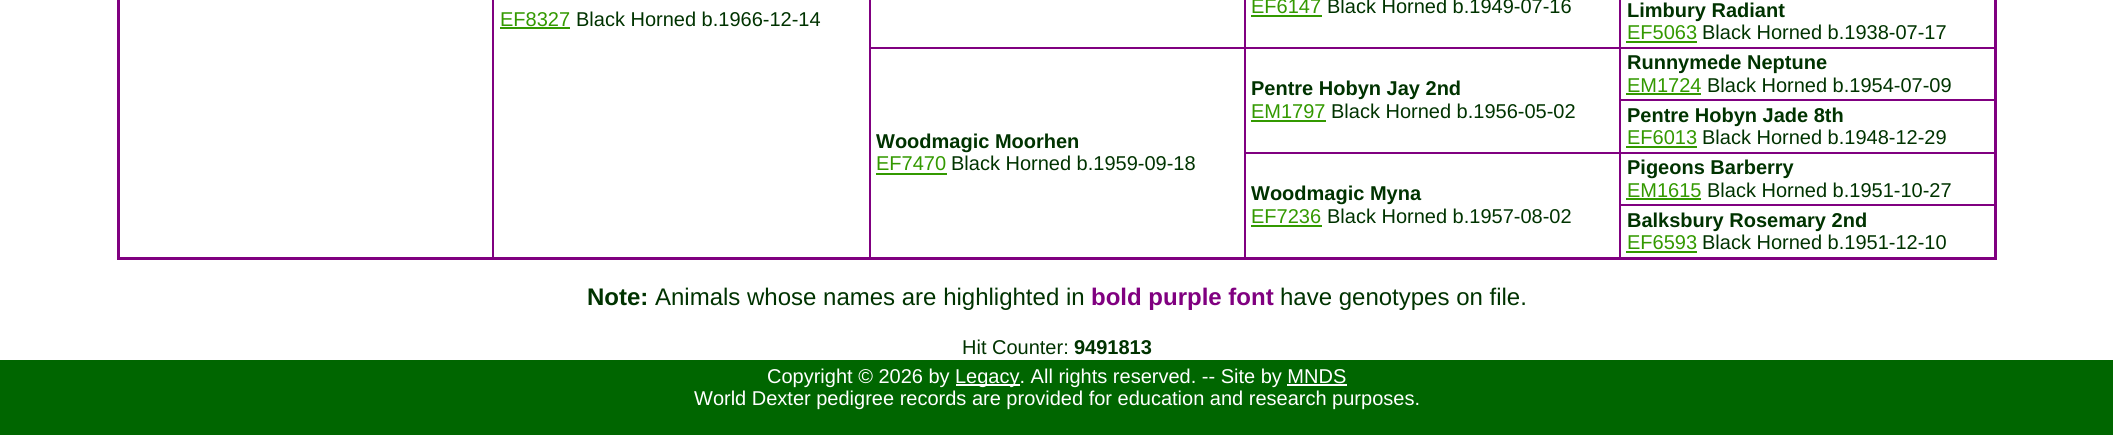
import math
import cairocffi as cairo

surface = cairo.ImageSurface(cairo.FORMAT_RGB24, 2113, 435)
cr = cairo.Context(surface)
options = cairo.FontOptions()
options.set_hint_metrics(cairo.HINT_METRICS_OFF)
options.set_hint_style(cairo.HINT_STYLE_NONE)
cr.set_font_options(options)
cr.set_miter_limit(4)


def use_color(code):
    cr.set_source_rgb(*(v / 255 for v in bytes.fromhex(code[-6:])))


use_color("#ffffff")
cr.paint()
use_color("#800080")
cr.rectangle(1619, 47, 378, 2)
cr.fill()
cr.rectangle(1619, 99, 378, 2)
cr.fill()
cr.rectangle(1619, 152, 378, 2)
cr.fill()
cr.rectangle(1619, 204, 378, 2)
cr.fill()
cr.rectangle(1994, 0, 3, 260)
cr.fill()
cr.rectangle(492, 0, 2, 260)
cr.fill()
cr.rectangle(1619, 204, 2, 56)
cr.fill()
cr.rectangle(1619, 152, 2, 54)
cr.fill()
cr.rectangle(1244, 152, 376, 2)
cr.fill()
cr.rectangle(1619, 99, 2, 54)
cr.fill()
cr.rectangle(1619, 47, 2, 54)
cr.fill()
cr.rectangle(1244, 47, 376, 2)
cr.fill()
cr.rectangle(1244, 152, 2, 108)
cr.fill()
cr.rectangle(1244, 47, 2, 106)
cr.fill()
cr.rectangle(869, 47, 376, 2)
cr.fill()
cr.rectangle(869, 0, 2, 260)
cr.fill()
cr.rectangle(117, 257, 1880, 3)
cr.fill()
cr.rectangle(117, 0, 3, 260)
cr.fill()
cr.select_font_face("Liberation Sans")
cr.set_font_size(20)
use_color("#339900")
cr.move_to(500, 26)
cr.show_text("EF8327")
cr.rectangle(500, 27, 70, 2)
cr.fill()
use_color("#003300")
cr.move_to(576, 26)
cr.show_text("Black Horned b.1966-12-14")
use_color("#800080")
cr.rectangle(1244, 0, 2, 48)
cr.fill()
use_color("#339900")
cr.move_to(1251, 13)
cr.show_text("EF6147")
cr.rectangle(1251, 15, 71, 2)
cr.fill()
use_color("#003300")
cr.move_to(1327, 13)
cr.show_text("Black Horned b.1949-07-16")
use_color("#800080")
cr.rectangle(1619, 0, 2, 48)
cr.fill()
cr.select_font_face("Liberation Sans", cairo.FONT_SLANT_NORMAL, cairo.FONT_WEIGHT_BOLD)
use_color("#003300")
cr.move_to(1627, 17)
cr.show_text("Limbury Radiant")
cr.select_font_face("Liberation Sans")
use_color("#339900")
cr.move_to(1627, 39)
cr.show_text("EF5063")
cr.rectangle(1626, 41, 71, 2)
cr.fill()
use_color("#003300")
cr.move_to(1702, 39)
cr.show_text("Black Horned b.1938-07-17")
cr.select_font_face("Liberation Sans", cairo.FONT_SLANT_NORMAL, cairo.FONT_WEIGHT_BOLD)
cr.move_to(1627, 69)
cr.show_text("Runnymede Neptune")
cr.select_font_face("Liberation Sans")
use_color("#339900")
cr.move_to(1627, 92)
cr.show_text("EM1724")
cr.rectangle(1626, 93, 75, 2)
cr.fill()
use_color("#003300")
cr.move_to(1707, 92)
cr.show_text("Black Horned b.1954-07-09")
cr.select_font_face("Liberation Sans", cairo.FONT_SLANT_NORMAL, cairo.FONT_WEIGHT_BOLD)
cr.move_to(1251, 95)
cr.show_text("Pentre Hobyn Jay 2nd")
cr.select_font_face("Liberation Sans")
use_color("#339900")
cr.move_to(1251, 118)
cr.show_text("EM1797")
cr.rectangle(1251, 120, 75, 2)
cr.fill()
use_color("#003300")
cr.move_to(1331, 118)
cr.show_text("Black Horned b.1956-05-02")
cr.select_font_face("Liberation Sans", cairo.FONT_SLANT_NORMAL, cairo.FONT_WEIGHT_BOLD)
cr.move_to(876, 148)
cr.show_text("Woodmagic Moorhen")
cr.select_font_face("Liberation Sans")
use_color("#339900")
cr.move_to(876, 170)
cr.show_text("EF7470")
cr.rectangle(876, 173, 71, 2)
cr.fill()
use_color("#003300")
cr.move_to(951, 170)
cr.show_text("Black Horned b.1959-09-18")
cr.select_font_face("Liberation Sans", cairo.FONT_SLANT_NORMAL, cairo.FONT_WEIGHT_BOLD)
cr.move_to(1627, 122)
cr.show_text("Pentre Hobyn Jade 8th")
cr.select_font_face("Liberation Sans")
use_color("#339900")
cr.move_to(1627, 144)
cr.show_text("EF6013")
cr.rectangle(1626, 146, 71, 2)
cr.fill()
use_color("#003300")
cr.move_to(1702, 144)
cr.show_text("Black Horned b.1948-12-29")
cr.select_font_face("Liberation Sans", cairo.FONT_SLANT_NORMAL, cairo.FONT_WEIGHT_BOLD)
cr.move_to(1627, 174)
cr.show_text("Pigeons Barberry")
cr.select_font_face("Liberation Sans")
use_color("#339900")
cr.move_to(1627, 197)
cr.show_text("EM1615")
cr.rectangle(1626, 198, 75, 2)
cr.fill()
use_color("#003300")
cr.move_to(1707, 197)
cr.show_text("Black Horned b.1951-10-27")
cr.select_font_face("Liberation Sans", cairo.FONT_SLANT_NORMAL, cairo.FONT_WEIGHT_BOLD)
cr.move_to(1251, 200)
cr.show_text("Woodmagic Myna")
cr.select_font_face("Liberation Sans")
use_color("#339900")
cr.move_to(1251, 223)
cr.show_text("EF7236")
cr.rectangle(1251, 225, 71, 2)
cr.fill()
use_color("#003300")
cr.move_to(1327, 223)
cr.show_text("Black Horned b.1957-08-02")
cr.select_font_face("Liberation Sans", cairo.FONT_SLANT_NORMAL, cairo.FONT_WEIGHT_BOLD)
cr.move_to(1627, 227)
cr.show_text("Balksbury Rosemary 2nd")
cr.select_font_face("Liberation Sans")
use_color("#339900")
cr.move_to(1627, 249)
cr.show_text("EF6593")
cr.rectangle(1626, 251, 71, 2)
cr.fill()
use_color("#003300")
cr.move_to(1702, 249)
cr.show_text("Black Horned b.1951-12-10")
cr.select_font_face("Liberation Sans", cairo.FONT_SLANT_NORMAL, cairo.FONT_WEIGHT_BOLD)
cr.set_font_size(24)
cr.move_to(587, 305)
cr.show_text("Note:")
cr.select_font_face("Liberation Sans")
cr.move_to(655, 305)
cr.show_text("Animals whose names are highlighted in")
cr.select_font_face("Liberation Sans", cairo.FONT_SLANT_NORMAL, cairo.FONT_WEIGHT_BOLD)
use_color("#800080")
cr.move_to(1091, 305)
cr.show_text("bold purple font")
cr.select_font_face("Liberation Sans")
use_color("#003300")
cr.move_to(1280, 305)
cr.show_text("have genotypes on file.")
cr.set_font_size(20)
cr.move_to(962, 354)
cr.show_text("Hit Counter:")
cr.select_font_face("Liberation Sans", cairo.FONT_SLANT_NORMAL, cairo.FONT_WEIGHT_BOLD)
cr.move_to(1074, 354)
cr.show_text("9491813")
use_color("#006600")
cr.rectangle(0, 360, 2113, 75)
cr.fill()
cr.select_font_face("Liberation Sans")
use_color("#ffffff")
cr.move_to(767, 383)
cr.show_text("Copyright © 2026 by")
cr.rectangle(956, 384, 64, 2)
cr.fill()
cr.move_to(955, 383)
cr.show_text("Legacy. All rights reserved. -- Site by MNDS")
cr.move_to(694, 405)
cr.show_text("World Dexter pedigree records are provided for education and research purposes.")
cr.rectangle(1287, 384, 60, 2)
cr.fill()
surface.write_to_png("result.png")
